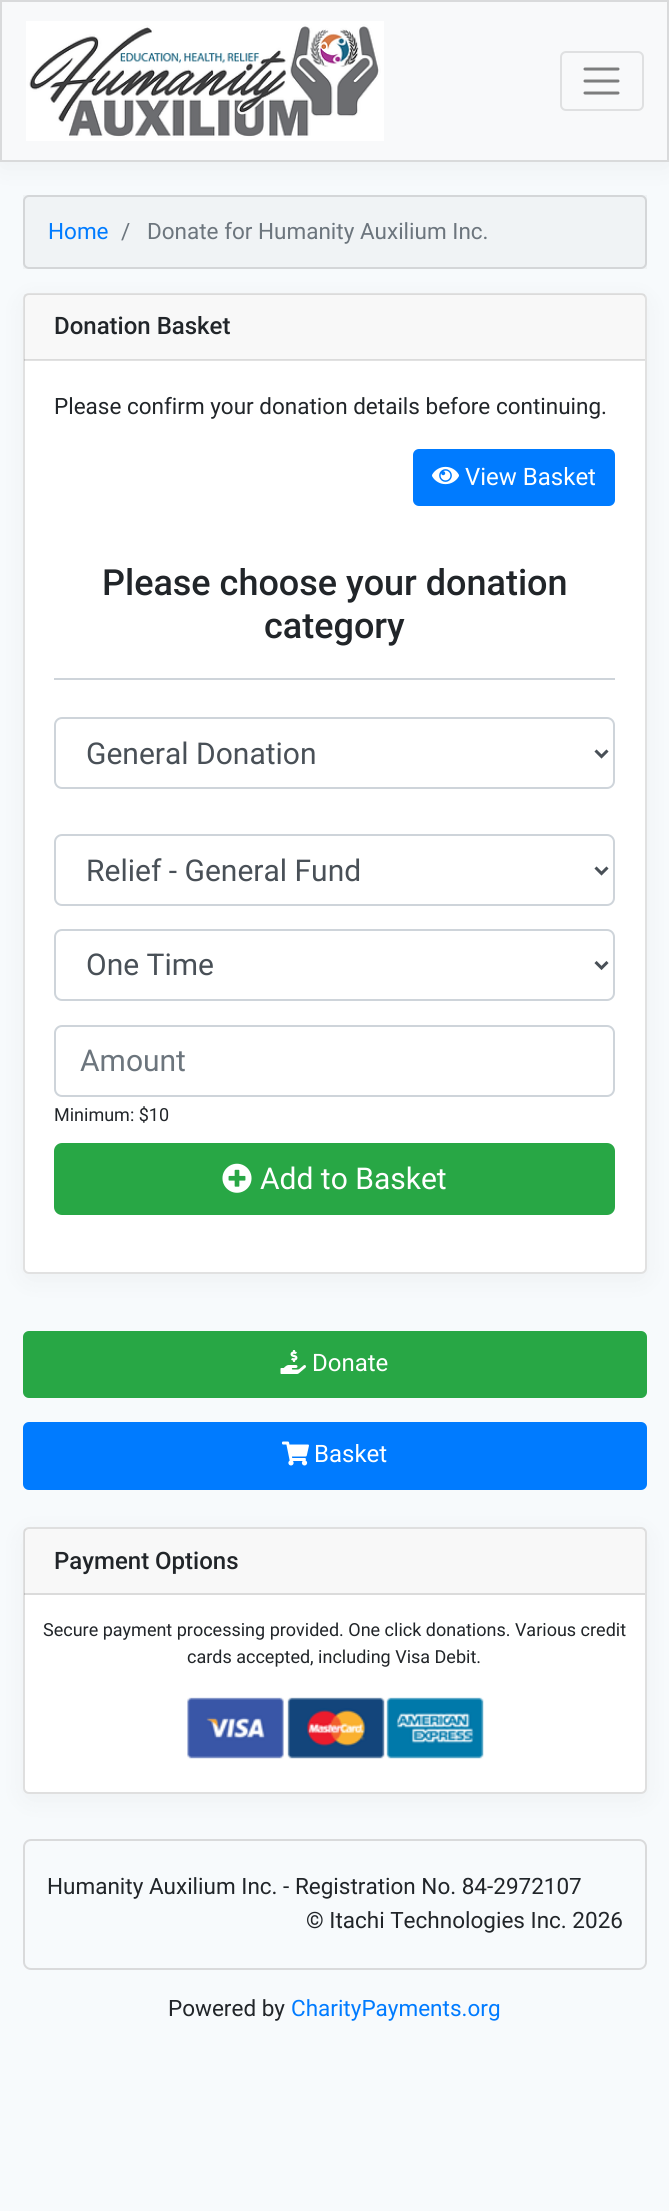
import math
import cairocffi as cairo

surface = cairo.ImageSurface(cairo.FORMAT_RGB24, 669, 2211)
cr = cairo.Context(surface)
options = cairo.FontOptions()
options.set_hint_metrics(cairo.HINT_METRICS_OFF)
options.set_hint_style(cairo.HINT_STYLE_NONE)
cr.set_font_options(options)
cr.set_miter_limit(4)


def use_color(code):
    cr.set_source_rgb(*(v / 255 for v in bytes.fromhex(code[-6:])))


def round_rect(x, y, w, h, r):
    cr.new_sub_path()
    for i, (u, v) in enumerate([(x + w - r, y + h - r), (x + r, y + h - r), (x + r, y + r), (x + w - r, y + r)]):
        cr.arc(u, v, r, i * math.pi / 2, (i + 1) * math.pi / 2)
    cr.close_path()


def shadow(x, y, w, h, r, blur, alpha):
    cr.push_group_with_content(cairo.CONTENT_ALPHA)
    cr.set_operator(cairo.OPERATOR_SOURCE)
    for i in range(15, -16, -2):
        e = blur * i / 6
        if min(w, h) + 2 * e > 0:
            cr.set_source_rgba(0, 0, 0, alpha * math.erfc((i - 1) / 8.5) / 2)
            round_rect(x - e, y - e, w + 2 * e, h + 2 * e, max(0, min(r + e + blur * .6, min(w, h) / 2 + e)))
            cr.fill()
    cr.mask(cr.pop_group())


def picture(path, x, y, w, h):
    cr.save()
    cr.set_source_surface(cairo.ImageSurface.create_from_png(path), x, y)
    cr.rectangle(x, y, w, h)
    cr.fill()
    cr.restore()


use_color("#f7fafc")
cr.paint()
use_color("#000000")
shadow(0, 6, 669, 162, 0, 15, 0.04)
use_color("#f8f9fa")
cr.rectangle(1, 1, 667, 160)
cr.fill_preserve()
use_color("#d9dadb")
cr.stroke()
picture("img1.png", 26, 21, 358, 120)
round_rect(561, 52, 82, 58, 5)
use_color("#dfe0e1")
cr.stroke()
cr.new_path()
cr.move_to(585, 69)
cr.line_to(618, 69)
cr.move_to(585, 81)
cr.line_to(618, 81)
cr.move_to(585, 93)
cr.line_to(618, 93)
use_color("#7c7d7d")
cr.set_line_width(3)
cr.set_line_cap(cairo.LINE_CAP_ROUND)
cr.stroke()
cr.set_source_rgba(0, 0, 0, 0.03)
cr.rectangle(23, 195, 624, 74)
cr.fill()
round_rect(24, 196, 622, 72, 5)
cr.set_source_rgba(0, 0, 0, 0.12)
cr.set_line_width(2)
cr.set_line_cap(cairo.LINE_CAP_BUTT)
cr.stroke()
cr.select_font_face("Roboto")
cr.set_font_size(22.5)
use_color("#007bff")
cr.move_to(48, 239)
cr.show_text("Home")
use_color("#6c757d")
cr.move_to(121, 239)
cr.show_text("/")
cr.move_to(147, 239)
cr.show_text("Donate for Humanity Auxilium Inc.")
use_color("#000000")
shadow(23, 299, 624, 981, 6, 15, 0.04)
use_color("#ffffff")
round_rect(23, 293, 624, 981, 6)
cr.fill()
round_rect(24, 294, 622, 979, 5)
cr.set_source_rgba(0, 0, 0, 0.12)
cr.stroke()
cr.set_source_rgba(0, 0, 0, 0.03)
cr.rectangle(24, 294, 621, 66)
cr.fill()
cr.set_source_rgba(0, 0, 0, 0.12)
cr.rectangle(24, 359, 621, 2)
cr.fill()
cr.select_font_face("Roboto Medium")
cr.set_font_size(24)
use_color("#212529")
cr.move_to(54, 334)
cr.show_text("Donation Basket")
cr.select_font_face("Roboto")
cr.set_font_size(22.5)
cr.move_to(54, 414)
cr.show_text("Please confirm your donation details before continuing.")
use_color("#007bff")
round_rect(414, 450, 200, 55, 5)
cr.fill_preserve()
cr.stroke()
picture("img2.png", 432, 466, 27, 19)
cr.set_font_size(24)
use_color("#ffffff")
cr.move_to(465, 485)
cr.show_text("View Basket")
use_color("#ced4da")
cr.rectangle(54, 678, 561, 2)
cr.fill()
cr.select_font_face("Roboto Medium")
cr.set_font_size(36)
use_color("#212529")
cr.move_to(102, 595)
cr.show_text("Please choose your donation")
cr.move_to(264, 638)
cr.show_text("category")
round_rect(55, 718, 559, 70, 7)
use_color("#ced4da")
cr.stroke()
cr.new_path()
cr.move_to(595.5, 750.5)
cr.line_to(601.5, 756.5)
cr.line_to(607.5, 750.5)
use_color("#495057")
cr.set_line_width(3)
cr.stroke()
cr.select_font_face("Roboto")
cr.set_font_size(30)
cr.move_to(86, 764)
cr.show_text("General Donation")
round_rect(55, 835, 559, 70, 7)
use_color("#ced4da")
cr.set_line_width(2)
cr.stroke()
cr.new_path()
cr.move_to(595.5, 867.5)
cr.line_to(601.5, 873.5)
cr.line_to(607.5, 867.5)
use_color("#495057")
cr.set_line_width(3)
cr.stroke()
cr.move_to(86, 881)
cr.show_text("Relief - General Fund")
round_rect(55, 930, 559, 70, 7)
use_color("#ced4da")
cr.set_line_width(2)
cr.stroke()
cr.new_path()
cr.move_to(595.5, 962)
cr.line_to(601.5, 968)
cr.line_to(607.5, 962)
use_color("#495057")
cr.set_line_width(3)
cr.stroke()
cr.move_to(86, 975)
cr.show_text("One Time")
round_rect(55, 1026, 559, 70, 7)
use_color("#ced4da")
cr.set_line_width(2)
cr.stroke()
use_color("#6c757d")
cr.move_to(80, 1071)
cr.show_text("Amount")
cr.set_font_size(18)
use_color("#212529")
cr.move_to(54, 1121)
cr.show_text("Minimum: $10")
use_color("#28a745")
round_rect(55, 1144, 559, 70, 7)
cr.fill_preserve()
cr.stroke()
picture("img3.png", 222, 1163, 30, 30)
cr.set_font_size(30)
use_color("#ffffff")
cr.move_to(260, 1189)
cr.show_text("Add to Basket")
use_color("#28a745")
round_rect(24, 1332, 622, 65, 5)
cr.fill_preserve()
cr.stroke()
picture("img4.png", 280, 1350, 26, 24)
cr.set_font_size(24)
use_color("#ffffff")
cr.move_to(312, 1371)
cr.show_text("Donate")
use_color("#007bff")
round_rect(24, 1423, 622, 66, 5)
cr.fill_preserve()
cr.stroke()
picture("img5.png", 282, 1441, 27, 25)
use_color("#ffffff")
cr.move_to(314, 1462)
cr.show_text("Basket")
round_rect(24, 1840, 622, 129, 7)
use_color("#d9dadb")
cr.stroke()
use_color("#000000")
shadow(23, 1533, 624, 267, 6, 15, 0.04)
use_color("#ffffff")
round_rect(24, 1528, 622, 265, 5)
cr.fill_preserve()
use_color("#dfdfdf")
cr.stroke()
cr.set_source_rgba(0, 0, 0, 0.03)
cr.rectangle(24, 1529, 621, 66)
cr.fill()
cr.set_source_rgba(0, 0, 0, 0.12)
cr.rectangle(24, 1593, 621, 2)
cr.fill()
cr.select_font_face("Roboto Medium")
use_color("#212529")
cr.move_to(54, 1569)
cr.show_text("Payment Options")
cr.select_font_face("Roboto")
cr.set_font_size(18)
cr.move_to(43, 1636)
cr.show_text("Secure payment processing provided. One click donations. Various credit")
cr.move_to(187, 1663)
cr.show_text("cards accepted, including Visa Debit.")
picture("img6.png", 187, 1697, 297, 62)
cr.set_font_size(22.5)
cr.move_to(47, 1894)
cr.show_text("Humanity Auxilium Inc. - Registration No. 84-2972107")
cr.move_to(306, 1928)
cr.show_text("© Itachi Technologies Inc. 2026")
cr.move_to(168, 2016)
cr.show_text("Powered by")
use_color("#007bff")
cr.move_to(291, 2016)
cr.show_text("CharityPayments.org")
surface.write_to_png("result.png")
